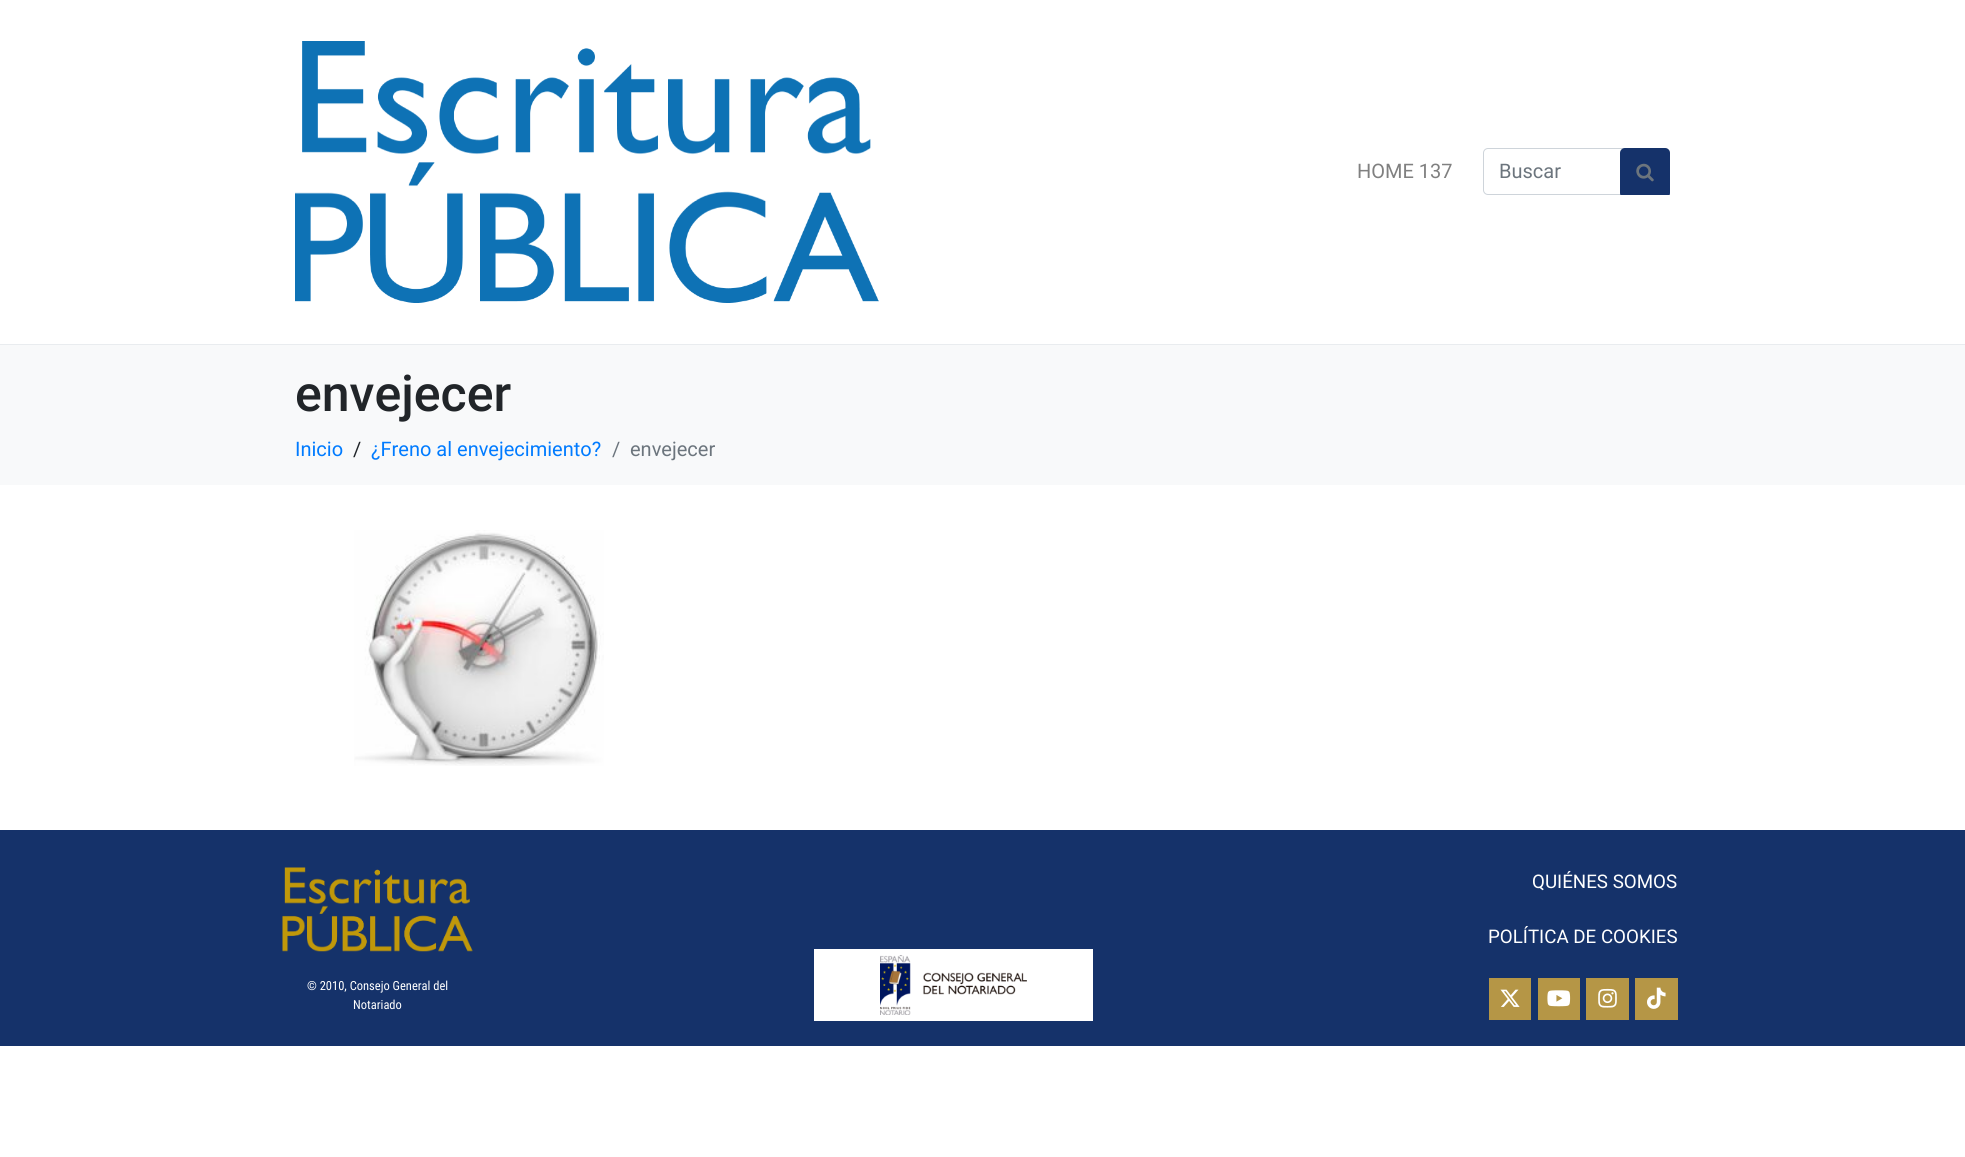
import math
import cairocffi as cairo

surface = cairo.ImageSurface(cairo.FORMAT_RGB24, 1965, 1157)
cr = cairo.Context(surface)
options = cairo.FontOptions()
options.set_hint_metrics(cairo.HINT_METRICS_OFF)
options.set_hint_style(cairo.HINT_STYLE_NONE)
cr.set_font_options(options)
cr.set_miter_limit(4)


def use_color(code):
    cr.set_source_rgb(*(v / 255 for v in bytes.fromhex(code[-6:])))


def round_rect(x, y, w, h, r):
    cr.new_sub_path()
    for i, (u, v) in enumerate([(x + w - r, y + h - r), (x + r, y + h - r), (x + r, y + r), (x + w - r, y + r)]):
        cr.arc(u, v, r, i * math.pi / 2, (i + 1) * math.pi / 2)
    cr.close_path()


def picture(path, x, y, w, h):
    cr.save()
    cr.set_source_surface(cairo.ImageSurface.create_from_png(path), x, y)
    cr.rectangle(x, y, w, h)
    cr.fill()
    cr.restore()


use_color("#ffffff")
cr.paint()
use_color("#e9ecef")
cr.rectangle(0, 344, 1965, 1)
cr.fill()
picture("img1.png", 295, 41, 584, 262)
cr.select_font_face("Roboto")
cr.set_font_size(20)
use_color("#808080")
cr.move_to(1357, 178)
cr.show_text("HOME 137")
round_rect(1483.5, 148.5, 186, 46, 4.5)
use_color("#ced4da")
cr.set_line_width(1)
cr.stroke()
use_color("#6c757d")
cr.move_to(1499, 178)
cr.show_text("Buscar")
cr.save()
cr.rectangle(1483, 148, 187, 47)
cr.clip()
use_color("#15326a")
round_rect(1620, 148, 50, 50, 5)
cr.fill()
cr.restore()
picture("img2.png", 1636, 163, 18, 19)
use_color("#f8f9fa")
cr.rectangle(0, 345, 1965, 140)
cr.fill()
cr.select_font_face("Roboto Medium")
cr.set_font_size(50)
use_color("#212529")
cr.move_to(295, 411)
cr.show_text("envejecer")
cr.select_font_face("Roboto")
cr.set_font_size(20)
use_color("#007bff")
cr.move_to(295, 456)
cr.show_text("Inicio")
use_color("#212529")
cr.move_to(353, 456)
cr.show_text("/")
use_color("#007bff")
cr.move_to(371, 456)
cr.show_text("¿Freno al envejecimiento?")
use_color("#6c757d")
cr.move_to(612, 456)
cr.show_text("/")
cr.move_to(630, 456)
cr.show_text("envejecer")
picture("img3.png", 354, 530, 250, 236)
use_color("#15326a")
cr.rectangle(0, 830, 1965, 216)
cr.fill()
cr.set_font_size(18.75)
use_color("#ffffff")
cr.move_to(1532, 888)
cr.show_text("QUIÉNES SOMOS")
cr.move_to(1488, 943)
cr.show_text("POLÍTICA DE COOKIES")
use_color("#b59646")
cr.rectangle(1489, 978, 42, 42)
cr.fill()
picture("img4.png", 1500, 989, 20, 18)
cr.rectangle(1538, 978, 42, 42)
cr.fill()
picture("img5.png", 1547, 990, 24, 17)
cr.rectangle(1586, 978, 43, 42)
cr.fill()
picture("img6.png", 1598, 988, 19, 20)
cr.rectangle(1635, 978, 43, 42)
cr.fill()
picture("img7.png", 1647, 987, 19, 22)
picture("img8.png", 282, 867, 191, 85)
cr.select_font_face("Roboto Condensed")
cr.set_font_size(12.5)
use_color("#ffffff")
cr.move_to(307, 990)
cr.show_text("© 2010, Consejo General del")
cr.move_to(353, 1009)
cr.show_text("Notariado")
cr.rectangle(814, 949, 279, 72)
cr.fill()
picture("img9.png", 880, 955, 147, 60)
surface.write_to_png("result.png")
